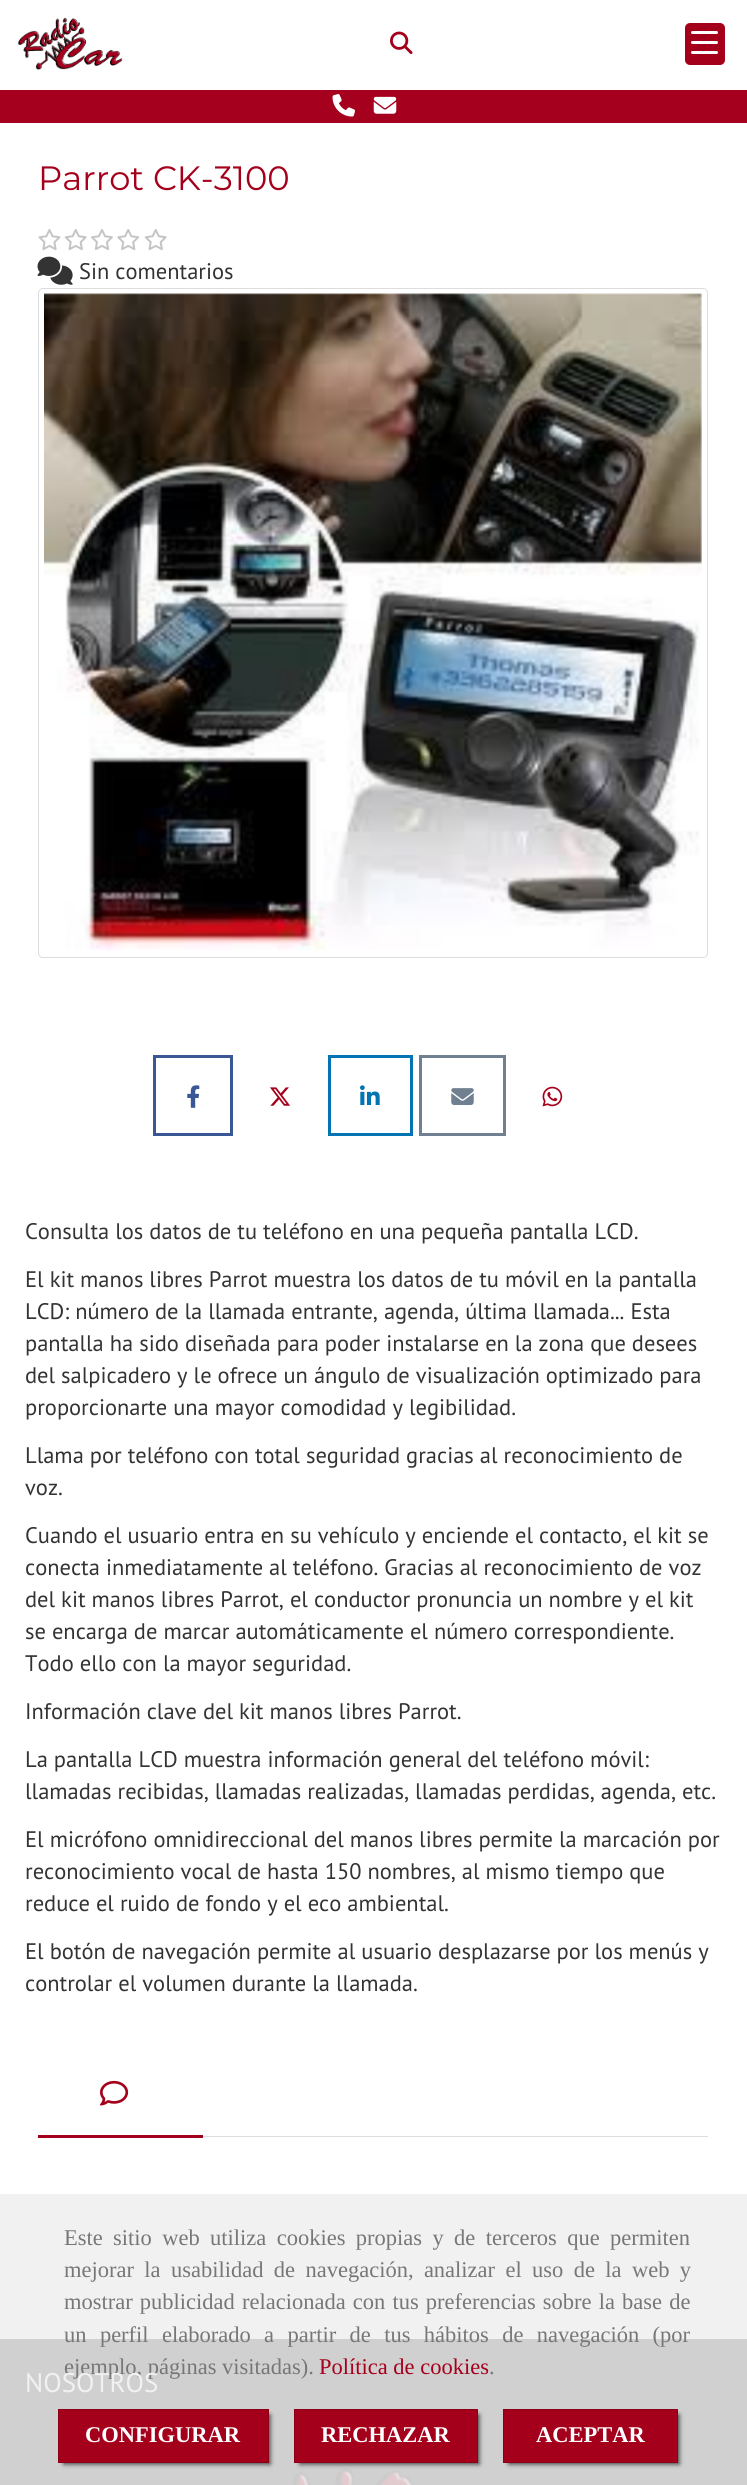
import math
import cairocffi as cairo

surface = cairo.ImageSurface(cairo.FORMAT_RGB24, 747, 2485)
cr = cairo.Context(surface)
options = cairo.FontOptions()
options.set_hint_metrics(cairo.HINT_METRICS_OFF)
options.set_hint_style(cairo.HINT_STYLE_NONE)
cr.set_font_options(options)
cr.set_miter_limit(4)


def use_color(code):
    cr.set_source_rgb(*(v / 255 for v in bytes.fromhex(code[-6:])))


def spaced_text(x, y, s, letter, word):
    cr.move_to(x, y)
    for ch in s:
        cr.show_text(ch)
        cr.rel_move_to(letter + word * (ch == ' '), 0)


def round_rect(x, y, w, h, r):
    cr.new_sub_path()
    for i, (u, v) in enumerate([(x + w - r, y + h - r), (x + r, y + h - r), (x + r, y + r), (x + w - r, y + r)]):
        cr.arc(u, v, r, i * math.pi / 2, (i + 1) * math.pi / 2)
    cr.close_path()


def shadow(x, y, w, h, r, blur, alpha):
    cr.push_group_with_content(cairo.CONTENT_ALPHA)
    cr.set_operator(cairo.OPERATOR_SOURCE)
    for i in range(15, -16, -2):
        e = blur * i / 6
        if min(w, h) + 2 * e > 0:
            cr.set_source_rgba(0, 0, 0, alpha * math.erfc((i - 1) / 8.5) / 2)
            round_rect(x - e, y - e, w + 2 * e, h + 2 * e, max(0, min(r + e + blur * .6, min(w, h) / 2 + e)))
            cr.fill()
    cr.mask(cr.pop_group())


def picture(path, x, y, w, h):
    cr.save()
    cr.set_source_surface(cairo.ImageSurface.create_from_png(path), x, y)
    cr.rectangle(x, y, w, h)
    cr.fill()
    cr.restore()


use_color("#ffffff")
cr.paint()
use_color("#f1f1f1")
cr.rectangle(0, 2194, 747, 145)
cr.fill()
picture("img1.png", 18, 17, 105, 53)
picture("img2.png", 390, 31, 23, 23)
use_color("#a5001b")
round_rect(685, 23, 40, 42, 5)
cr.fill()
use_color("#ffffff")
round_rect(691, 41, 27, 3, 1.5)
cr.fill()
round_rect(691, 31, 27, 3, 1.5)
cr.fill()
round_rect(691, 51, 27, 3, 1.5)
cr.fill()
use_color("#a5001e")
cr.rectangle(0, 90, 747, 33)
cr.fill()
picture("img3.png", 332, 94, 23, 23)
picture("img4.png", 373, 96, 24, 18)
cr.select_font_face("Montserrat Thin")
cr.set_font_size(33.75)
use_color("#a5001b")
cr.move_to(38, 190)
cr.show_text("Parrot CK-3100")
picture("img5.png", 38, 229, 23, 22)
picture("img6.png", 64, 229, 23, 22)
picture("img7.png", 91, 229, 22, 21)
picture("img8.png", 117, 229, 23, 22)
picture("img6.png", 144, 229, 23, 22)
picture("img9.png", 37, 256, 36, 29)
cr.select_font_face("PT Sans")
cr.set_font_size(22.5)
use_color("#333333")
cr.move_to(79, 279)
cr.show_text("Sin comentarios")
round_rect(38.5, 288.5, 669, 669, 4.5)
use_color("#dddddd")
cr.set_line_width(1)
cr.stroke()
picture("img10.png", 44, 293, 658, 658)
cr.rectangle(154.5, 1056.5, 77, 78)
use_color("#3a5795")
cr.set_line_width(3)
cr.stroke()
picture("img11.png", 187, 1085, 13, 23)
picture("img12.png", 270, 1087, 20, 19)
cr.rectangle(329.5, 1056.5, 82, 78)
use_color("#0274b3")
cr.stroke()
picture("img13.png", 360, 1085, 20, 20)
cr.rectangle(420.5, 1056.5, 84, 78)
use_color("#708090")
cr.stroke()
picture("img14.png", 451, 1088, 23, 17)
picture("img15.png", 542, 1086, 21, 21)
use_color("#333333")
cr.move_to(25, 1239)
cr.show_text("Consulta los datos de tu teléfono en una pequeña pantalla LCD.")
cr.move_to(25, 1287)
cr.show_text("El kit manos libres Parrot muestra los datos de tu móvil en la pantalla")
cr.move_to(25, 1319)
cr.show_text("LCD: número de la llamada entrante, agenda, última llamada... Esta")
cr.move_to(25, 1351)
cr.show_text("pantalla ha sido diseñada para poder instalarse en la zona que desees")
cr.move_to(25, 1383)
cr.show_text("del salpicadero y le ofrece un ángulo de visualización optimizado para")
cr.move_to(25, 1415)
cr.show_text("proporcionarte una mayor comodidad y legibilidad.")
cr.move_to(25, 1463)
cr.show_text("Llama por teléfono con total seguridad gracias al reconocimiento de")
cr.move_to(25, 1495)
cr.show_text("voz.")
cr.move_to(25, 1543)
cr.show_text("Cuando el usuario entra en su vehículo y enciende el contacto, el kit se")
cr.move_to(25, 1575)
cr.show_text("conecta inmediatamente al teléfono. Gracias al reconocimiento de voz")
cr.move_to(25, 1607)
cr.show_text("del kit manos libres Parrot, el conductor pronuncia un nombre y el kit")
cr.move_to(25, 1639)
cr.show_text("se encarga de marcar automáticamente el número correspondiente.")
cr.move_to(25, 1671)
cr.show_text("Todo ello con la mayor seguridad.")
cr.move_to(25, 1719)
cr.show_text("Información clave del kit manos libres Parrot.")
cr.move_to(25, 1767)
cr.show_text("La pantalla LCD muestra información general del teléfono móvil:")
cr.move_to(25, 1799)
cr.show_text("llamadas recibidas, llamadas realizadas, llamadas perdidas, agenda, etc.")
cr.move_to(25, 1847)
cr.show_text("El micrófono omnidireccional del manos libres permite la marcación por")
cr.move_to(25, 1879)
cr.show_text("reconocimiento vocal de hasta 150 nombres, al mismo tiempo que")
cr.move_to(25, 1911)
cr.show_text("reduce el ruido de fondo y el eco ambiental.")
cr.move_to(25, 1959)
cr.show_text("El botón de navegación permite al usuario desplazarse por los menús y")
cr.move_to(25, 1991)
cr.show_text("controlar el volumen durante la llamada.")
use_color("#dddddd")
cr.rectangle(203, 2136, 505, 1)
cr.fill()
picture("img16.png", 100, 2080, 29, 26)
use_color("#a5001b")
cr.rectangle(38, 2135, 165, 3)
cr.fill()
cr.select_font_face("Liberation Serif")
use_color("#777777")
spaced_text(64, 2245, "Este sitio web utiliza cookies propias y de terceros que permiten", 0, 4.75)
spaced_text(64, 2277, "mejorar la usabilidad de navegación, analizar el uso de la web y", 0, 4.75)
spaced_text(64, 2309, "mostrar publicidad relacionada con tus preferencias sobre la base de", 0, 1.5)
use_color("#d0d0d0")
cr.rectangle(0, 2339, 747, 146)
cr.fill()
use_color("#777777")
spaced_text(64, 2342, "un perfil elaborado a partir de tus hábitos de navegación (por", 0, 7.75)
cr.move_to(64, 2374)
cr.show_text("ejemplo, páginas visitadas).")
use_color("#a5001b")
cr.move_to(319, 2374)
cr.show_text("Política de cookies")
use_color("#777777")
cr.move_to(489, 2374)
cr.show_text(".")
use_color("#000000")
shadow(64, 2415, 206, 49, 0, 2.5, 0.75)
use_color("#a5001b")
cr.rectangle(58.5, 2409.5, 210, 53)
cr.fill_preserve()
use_color("#8c0017")
cr.set_line_width(1)
cr.stroke()
cr.select_font_face("Liberation Serif", cairo.FONT_SLANT_NORMAL, cairo.FONT_WEIGHT_BOLD)
use_color("#ffffff")
cr.move_to(85, 2442)
cr.show_text("CONFIGURAR")
picture("img17.png", 291, 2468, 122, 17)
use_color("#000000")
shadow(300, 2415, 179, 49, 0, 2.5, 0.75)
use_color("#a5001b")
cr.rectangle(294.5, 2409.5, 183, 53)
cr.fill_preserve()
use_color("#8c0017")
cr.stroke()
use_color("#ffffff")
cr.move_to(321, 2442)
cr.show_text("RECHAZAR")
use_color("#000000")
shadow(509, 2415, 170, 49, 0, 2.5, 0.75)
use_color("#a5001b")
cr.rectangle(503.5, 2409.5, 174, 53)
cr.fill_preserve()
use_color("#8c0017")
cr.stroke()
use_color("#ffffff")
cr.move_to(536, 2442)
cr.show_text("ACEPTAR")
cr.select_font_face("PT Sans")
cr.set_font_size(27)
use_color("#f1f1f1")
cr.move_to(25, 2392)
cr.show_text("NOSOTROS")
surface.write_to_png("result.png")
